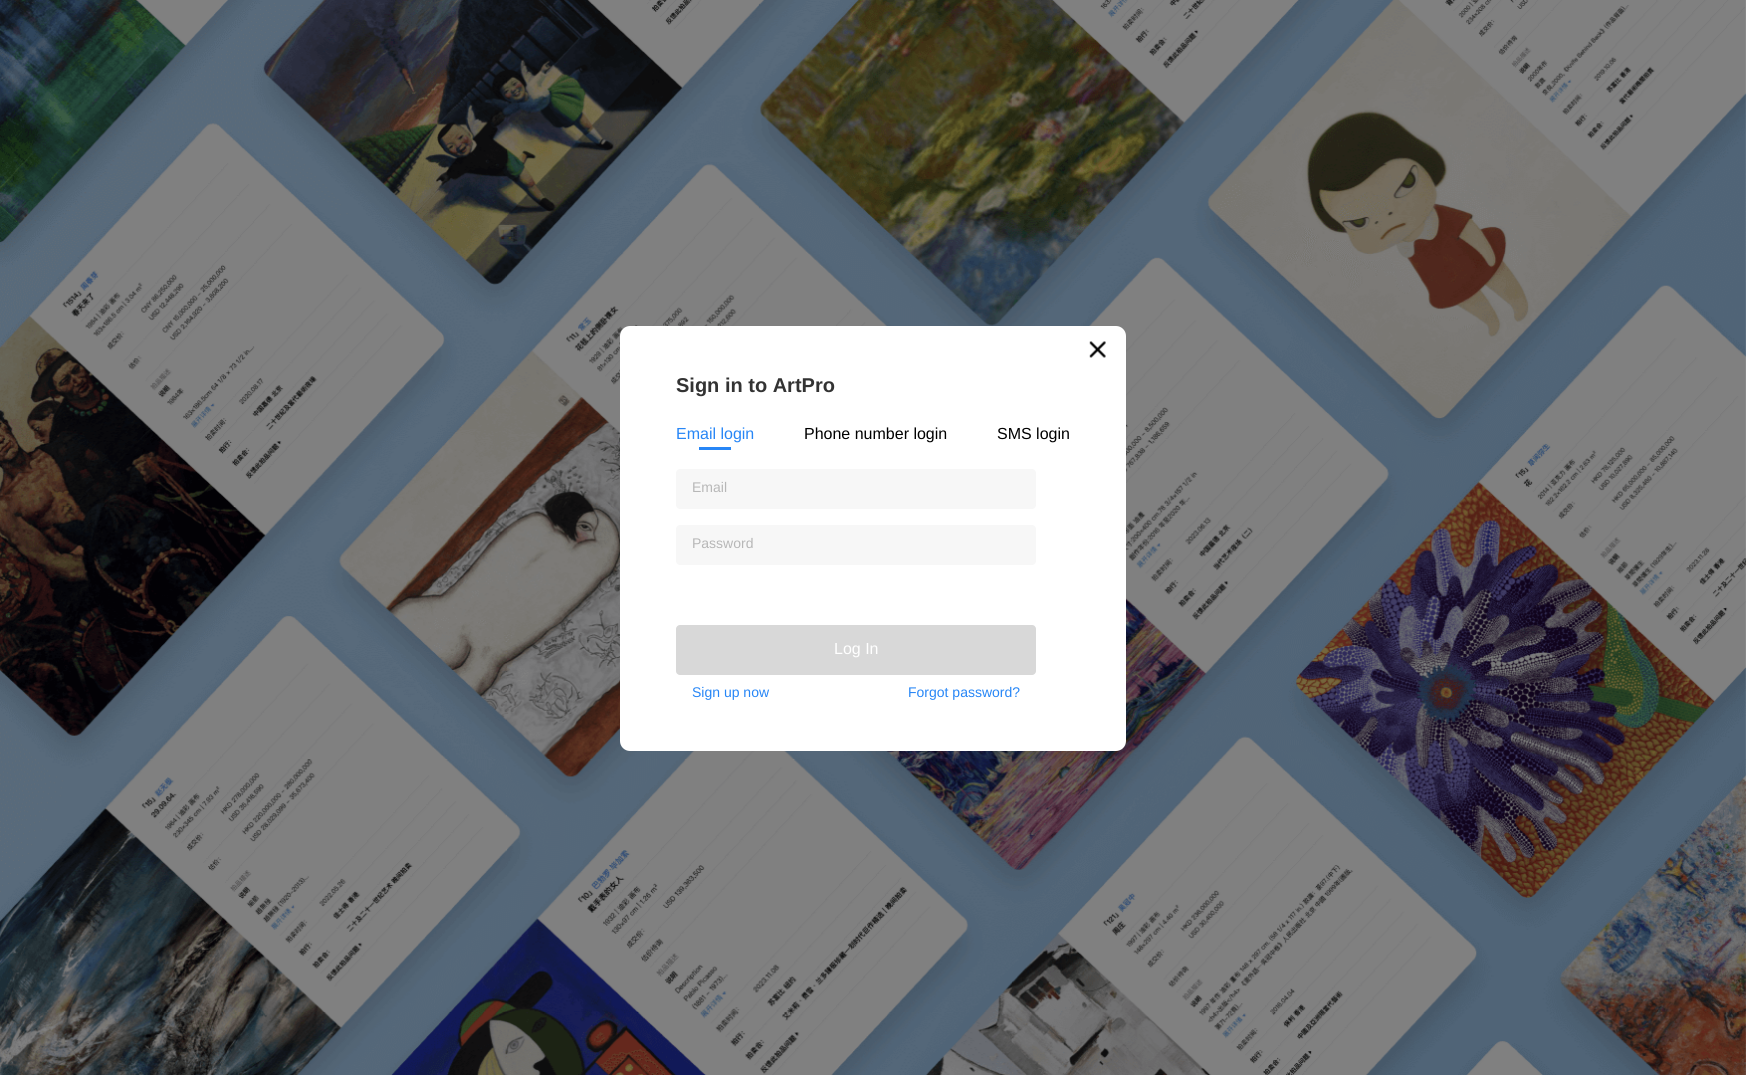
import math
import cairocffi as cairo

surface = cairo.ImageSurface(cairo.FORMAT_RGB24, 1746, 1075)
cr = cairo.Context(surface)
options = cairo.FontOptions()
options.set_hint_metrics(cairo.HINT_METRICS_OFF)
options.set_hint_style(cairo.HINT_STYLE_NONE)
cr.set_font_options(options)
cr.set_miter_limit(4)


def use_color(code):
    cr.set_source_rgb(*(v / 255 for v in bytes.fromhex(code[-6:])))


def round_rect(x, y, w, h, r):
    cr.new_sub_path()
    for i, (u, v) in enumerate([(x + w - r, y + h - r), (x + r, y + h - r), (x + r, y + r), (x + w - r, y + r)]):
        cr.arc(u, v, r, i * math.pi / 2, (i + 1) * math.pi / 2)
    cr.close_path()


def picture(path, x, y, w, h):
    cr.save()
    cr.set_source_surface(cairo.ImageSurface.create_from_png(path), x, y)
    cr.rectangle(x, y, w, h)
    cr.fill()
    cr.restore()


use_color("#ffffff")
cr.paint()
picture("img1.png", 0, 0, 1746, 1075)
use_color("#ffffff")
round_rect(620, 326, 506, 425, 10)
cr.fill()
picture("img2.png", 1089, 341, 17, 17)
cr.select_font_face("Liberation Sans", cairo.FONT_SLANT_NORMAL, cairo.FONT_WEIGHT_BOLD)
cr.set_font_size(20)
use_color("#333333")
cr.move_to(676, 392)
cr.show_text("Sign in to ArtPro")
cr.select_font_face("Liberation Sans")
cr.set_font_size(16)
use_color("#2786f6")
cr.move_to(676, 439)
cr.show_text("Email login")
cr.rectangle(699, 447, 32, 3)
cr.fill()
use_color("#000000")
cr.move_to(804, 439)
cr.show_text("Phone number login")
cr.move_to(997, 439)
cr.show_text("SMS login")
use_color("#f7f7f7")
round_rect(676, 469, 360, 40, 4)
cr.fill()
cr.set_font_size(14)
use_color("#b7b7b7")
cr.move_to(692, 492)
cr.show_text("Email")
use_color("#f7f7f7")
round_rect(676, 525, 360, 40, 4)
cr.fill()
use_color("#b7b7b7")
cr.move_to(692, 548)
cr.show_text("Password")
use_color("#d8d8d8")
round_rect(676, 625, 360, 50, 4)
cr.fill()
cr.set_font_size(16)
use_color("#ffffff")
cr.move_to(834, 654)
cr.show_text("Log In")
cr.set_font_size(14)
use_color("#2786f6")
cr.move_to(692, 697)
cr.show_text("Sign up now")
cr.move_to(908, 697)
cr.show_text("Forgot password?")
surface.write_to_png("result.png")
